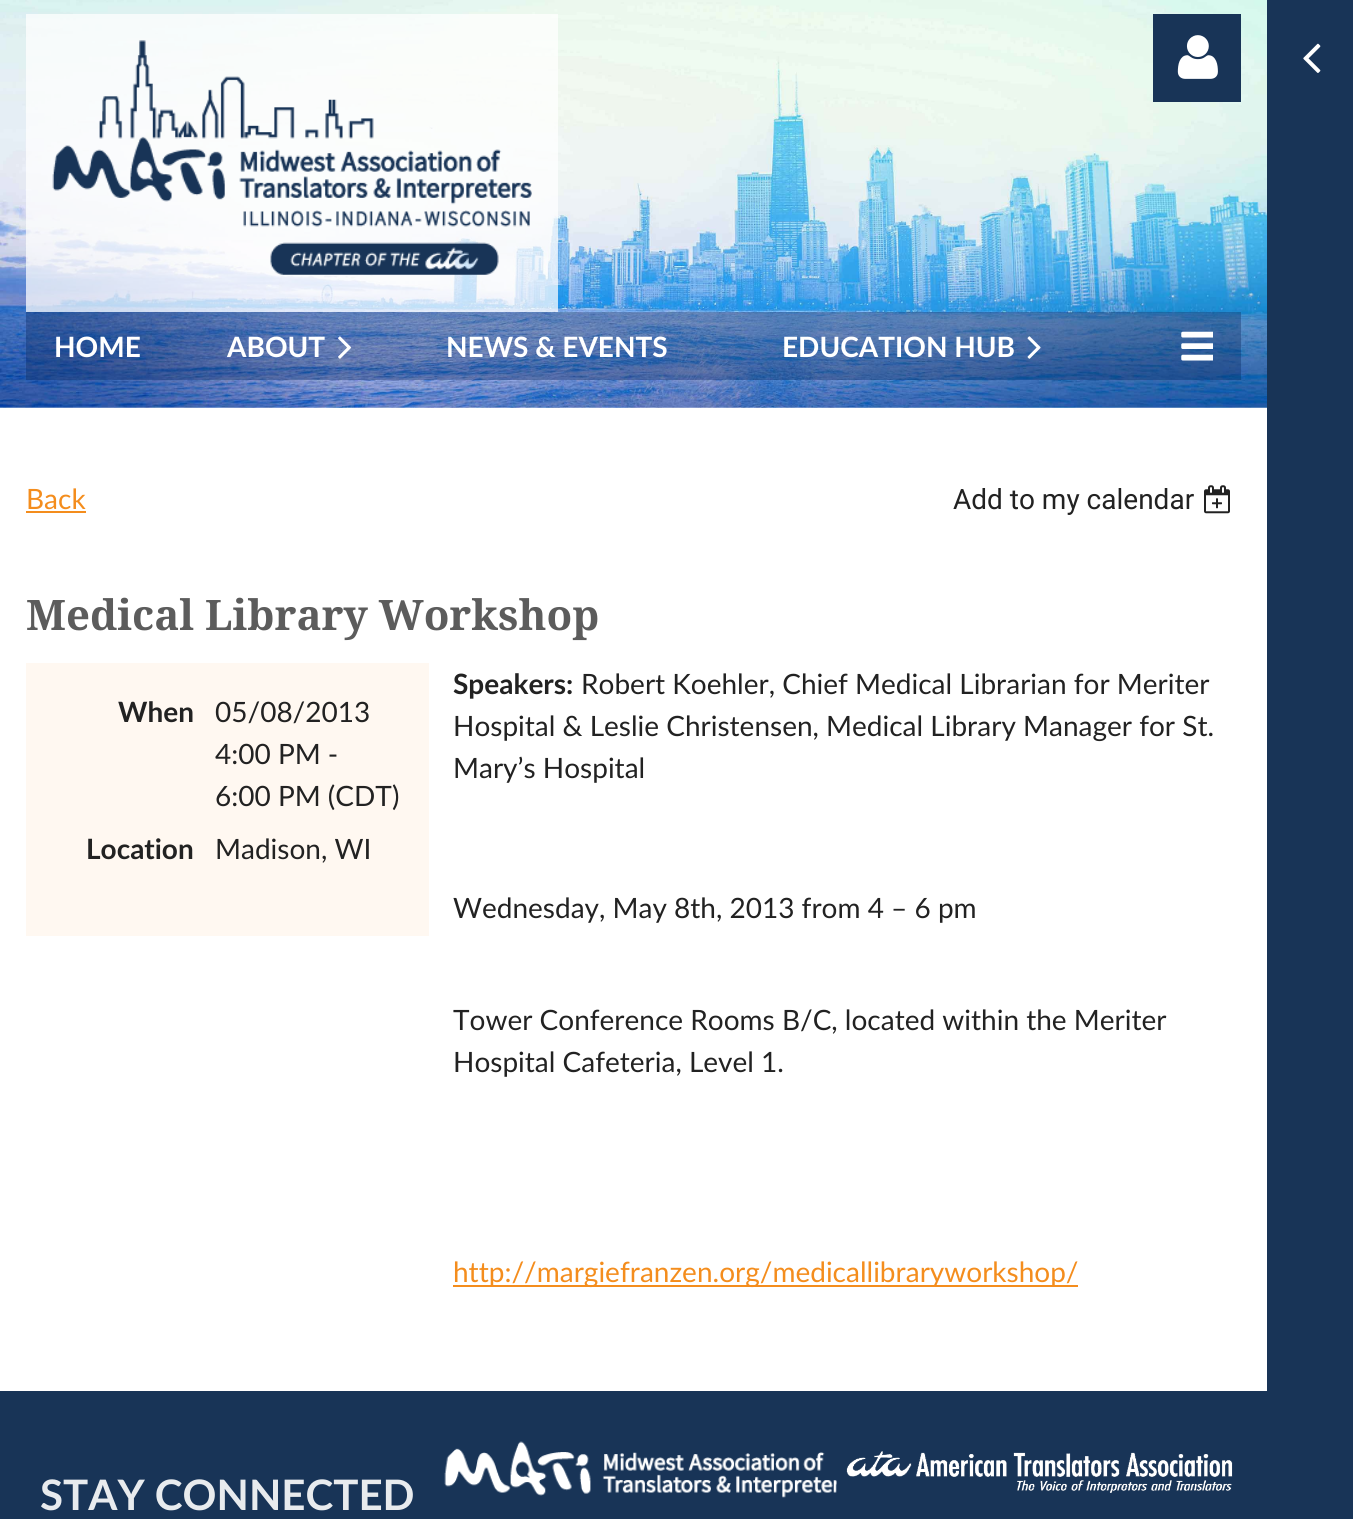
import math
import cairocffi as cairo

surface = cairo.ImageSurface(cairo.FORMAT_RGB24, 1353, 1519)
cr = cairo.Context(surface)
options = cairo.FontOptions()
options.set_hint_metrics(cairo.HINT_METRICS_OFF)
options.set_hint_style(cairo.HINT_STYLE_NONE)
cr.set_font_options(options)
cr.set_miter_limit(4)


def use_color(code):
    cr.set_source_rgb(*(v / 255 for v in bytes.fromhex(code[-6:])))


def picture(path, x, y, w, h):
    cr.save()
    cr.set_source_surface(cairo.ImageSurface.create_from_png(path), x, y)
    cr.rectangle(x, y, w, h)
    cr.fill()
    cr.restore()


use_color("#ffffff")
cr.paint()
picture("img1.png", 0, 0, 1267, 408)
cr.set_source_rgba(1, 1, 1, 0.73)
cr.rectangle(26, 14, 532, 298)
cr.fill()
picture("img2.png", 52, 40, 480, 235)
use_color("#183457")
cr.rectangle(1153, 14, 88, 88)
cr.fill()
picture("img3.png", 1177, 35, 41, 44)
cr.set_source_rgba(0, 0.129, 0.341, 0.33)
cr.rectangle(26, 312, 1215, 68)
cr.fill()
cr.select_font_face("Lato", cairo.FONT_SLANT_NORMAL, cairo.FONT_WEIGHT_BOLD)
cr.set_font_size(28)
use_color("#ffffff")
cr.move_to(54, 357)
cr.show_text("HOME")
cr.move_to(227, 357)
cr.show_text("ABOUT")
picture("img4.png", 338, 336, 14, 23)
cr.move_to(446, 357)
cr.show_text("NEWS & EVENTS")
cr.move_to(782, 357)
cr.show_text("EDUCATION HUB")
picture("img5.png", 1027, 336, 14, 23)
picture("img6.png", 1181, 331, 32, 30)
cr.select_font_face("Lato")
use_color("#f48d1d")
cr.move_to(26, 509)
cr.show_text("Back")
cr.rectangle(26, 511, 60, 2)
cr.fill()
cr.select_font_face("Roboto")
use_color("#222222")
cr.move_to(953, 509)
cr.show_text("Add to my calendar")
picture("img7.png", 1204, 485, 26, 29)
cr.select_font_face("Droid Serif", cairo.FONT_SLANT_NORMAL, cairo.FONT_WEIGHT_BOLD)
cr.set_font_size(42)
use_color("#5c5c5c")
cr.move_to(26, 630)
cr.show_text("Medical Library Workshop")
use_color("#fff8f1")
cr.rectangle(26, 663, 403, 273)
cr.fill()
cr.select_font_face("Lato", cairo.FONT_SLANT_NORMAL, cairo.FONT_WEIGHT_BOLD)
cr.set_font_size(28)
use_color("#222222")
cr.move_to(118, 722)
cr.show_text("When")
cr.select_font_face("Lato")
cr.move_to(215, 722)
cr.show_text("05/08/2013")
cr.move_to(215, 764)
cr.show_text("4:00 PM -")
cr.move_to(215, 806)
cr.show_text("6:00 PM (CDT)")
cr.select_font_face("Lato", cairo.FONT_SLANT_NORMAL, cairo.FONT_WEIGHT_BOLD)
cr.move_to(86, 859)
cr.show_text("Location")
cr.select_font_face("Lato")
cr.move_to(215, 859)
cr.show_text("Madison, WI")
cr.select_font_face("Lato", cairo.FONT_SLANT_NORMAL, cairo.FONT_WEIGHT_BOLD)
cr.move_to(453, 694)
cr.show_text("Speakers:")
cr.select_font_face("Lato")
cr.move_to(581, 694)
cr.show_text("Robert Koehler, Chief Medical Librarian for Meriter")
cr.move_to(453, 736)
cr.show_text("Hospital & Leslie Christensen, Medical Library Manager for St.")
cr.move_to(453, 778)
cr.show_text("Mary’s Hospital")
cr.move_to(453, 918)
cr.show_text("Wednesday, May 8th, 2013 from 4 – 6 pm")
cr.move_to(453, 1030)
cr.show_text("Tower Conference Rooms B/C, located within the Meriter")
cr.move_to(453, 1072)
cr.show_text("Hospital Cafeteria, Level 1.")
use_color("#f48d1d")
cr.rectangle(453, 1285, 625, 2)
cr.fill()
cr.move_to(453, 1282)
cr.show_text("http://margiefranzen.org/medicallibraryworkshop/")
use_color("#183457")
cr.rectangle(0, 1391, 1267, 128)
cr.fill()
cr.select_font_face("Lato", cairo.FONT_SLANT_NORMAL, cairo.FONT_WEIGHT_BOLD)
cr.set_font_size(42)
use_color("#e8ebee")
cr.move_to(40, 1510)
cr.show_text("STAY CONNECTED")
picture("img8.png", 444, 1441, 393, 57)
picture("img9.png", 846, 1451, 387, 42)
use_color("#183457")
cr.rectangle(1267, 0, 86, 1519)
cr.fill()
picture("img10.png", 1303, 43, 18, 30)
surface.write_to_png("result.png")
